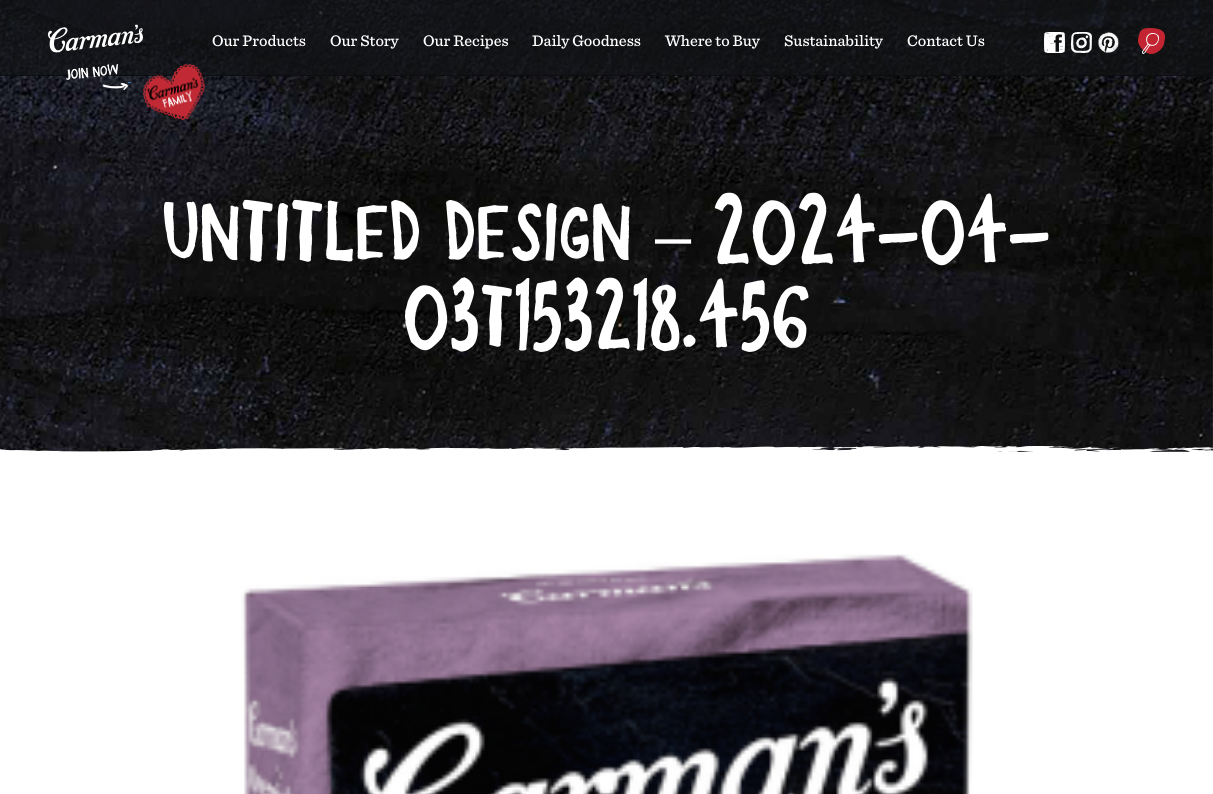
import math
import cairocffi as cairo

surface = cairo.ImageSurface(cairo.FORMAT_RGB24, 1213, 794)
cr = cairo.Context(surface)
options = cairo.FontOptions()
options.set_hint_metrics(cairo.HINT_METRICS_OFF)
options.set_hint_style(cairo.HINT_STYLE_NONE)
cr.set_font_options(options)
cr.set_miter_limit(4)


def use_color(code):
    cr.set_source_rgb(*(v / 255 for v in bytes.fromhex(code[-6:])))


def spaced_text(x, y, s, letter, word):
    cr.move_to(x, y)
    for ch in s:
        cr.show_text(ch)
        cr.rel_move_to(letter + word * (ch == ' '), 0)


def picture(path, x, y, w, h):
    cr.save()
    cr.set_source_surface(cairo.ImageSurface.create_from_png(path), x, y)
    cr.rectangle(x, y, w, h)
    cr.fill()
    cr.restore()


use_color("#ffffff")
cr.paint()
picture("img1.png", 0, 0, 1213, 452)
cr.set_source_rgba(0.067, 0.075, 0.086, 0.72)
cr.rectangle(0, 0, 1213, 76)
cr.fill()
picture("img2.png", 48, 24, 95, 29)
cr.select_font_face("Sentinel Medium")
cr.set_font_size(16)
use_color("#ffffff")
cr.move_to(212, 46)
cr.show_text("Our Products")
cr.move_to(330, 46)
cr.show_text("Our Story")
cr.move_to(423, 46)
cr.show_text("Our Recipes")
cr.move_to(532, 46)
cr.show_text("Daily Goodness")
cr.move_to(665, 46)
cr.show_text("Where to Buy")
cr.move_to(784, 46)
cr.show_text("Sustainability")
cr.move_to(907, 46)
cr.show_text("Contact Us")
picture("img3.png", 1044, 32, 21, 21)
picture("img4.png", 1071, 32, 21, 21)
picture("img5.png", 1098, 32, 21, 21)
picture("img6.png", 1138, 28, 27, 26)
picture("img7.png", 0, 75, 1213, 1)
picture("img8.png", 66, 64, 62, 26)
use_color("#337ab7")
cr.rectangle(128, 82, 3, 1)
cr.fill()
picture("img9.png", 143, 64, 62, 56)
cr.select_font_face("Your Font")
cr.set_font_size(65)
use_color("#ffffff")
spaced_text(162, 258, "UNTITLED DESIGN", -0.3, 0)
cr.select_font_face("Liberation Sans")
spaced_text(655, 258, "–", -0.3, 0)
cr.select_font_face("Your Font")
spaced_text(713, 258, "2024-04-", -0.3, 0)
spaced_text(403, 343, "03T153218.456", -0.3, 0)
picture("img10.png", 0, 446, 1213, 10)
picture("img11.png", 241, 554, 732, 240)
surface.write_to_png("result.png")
